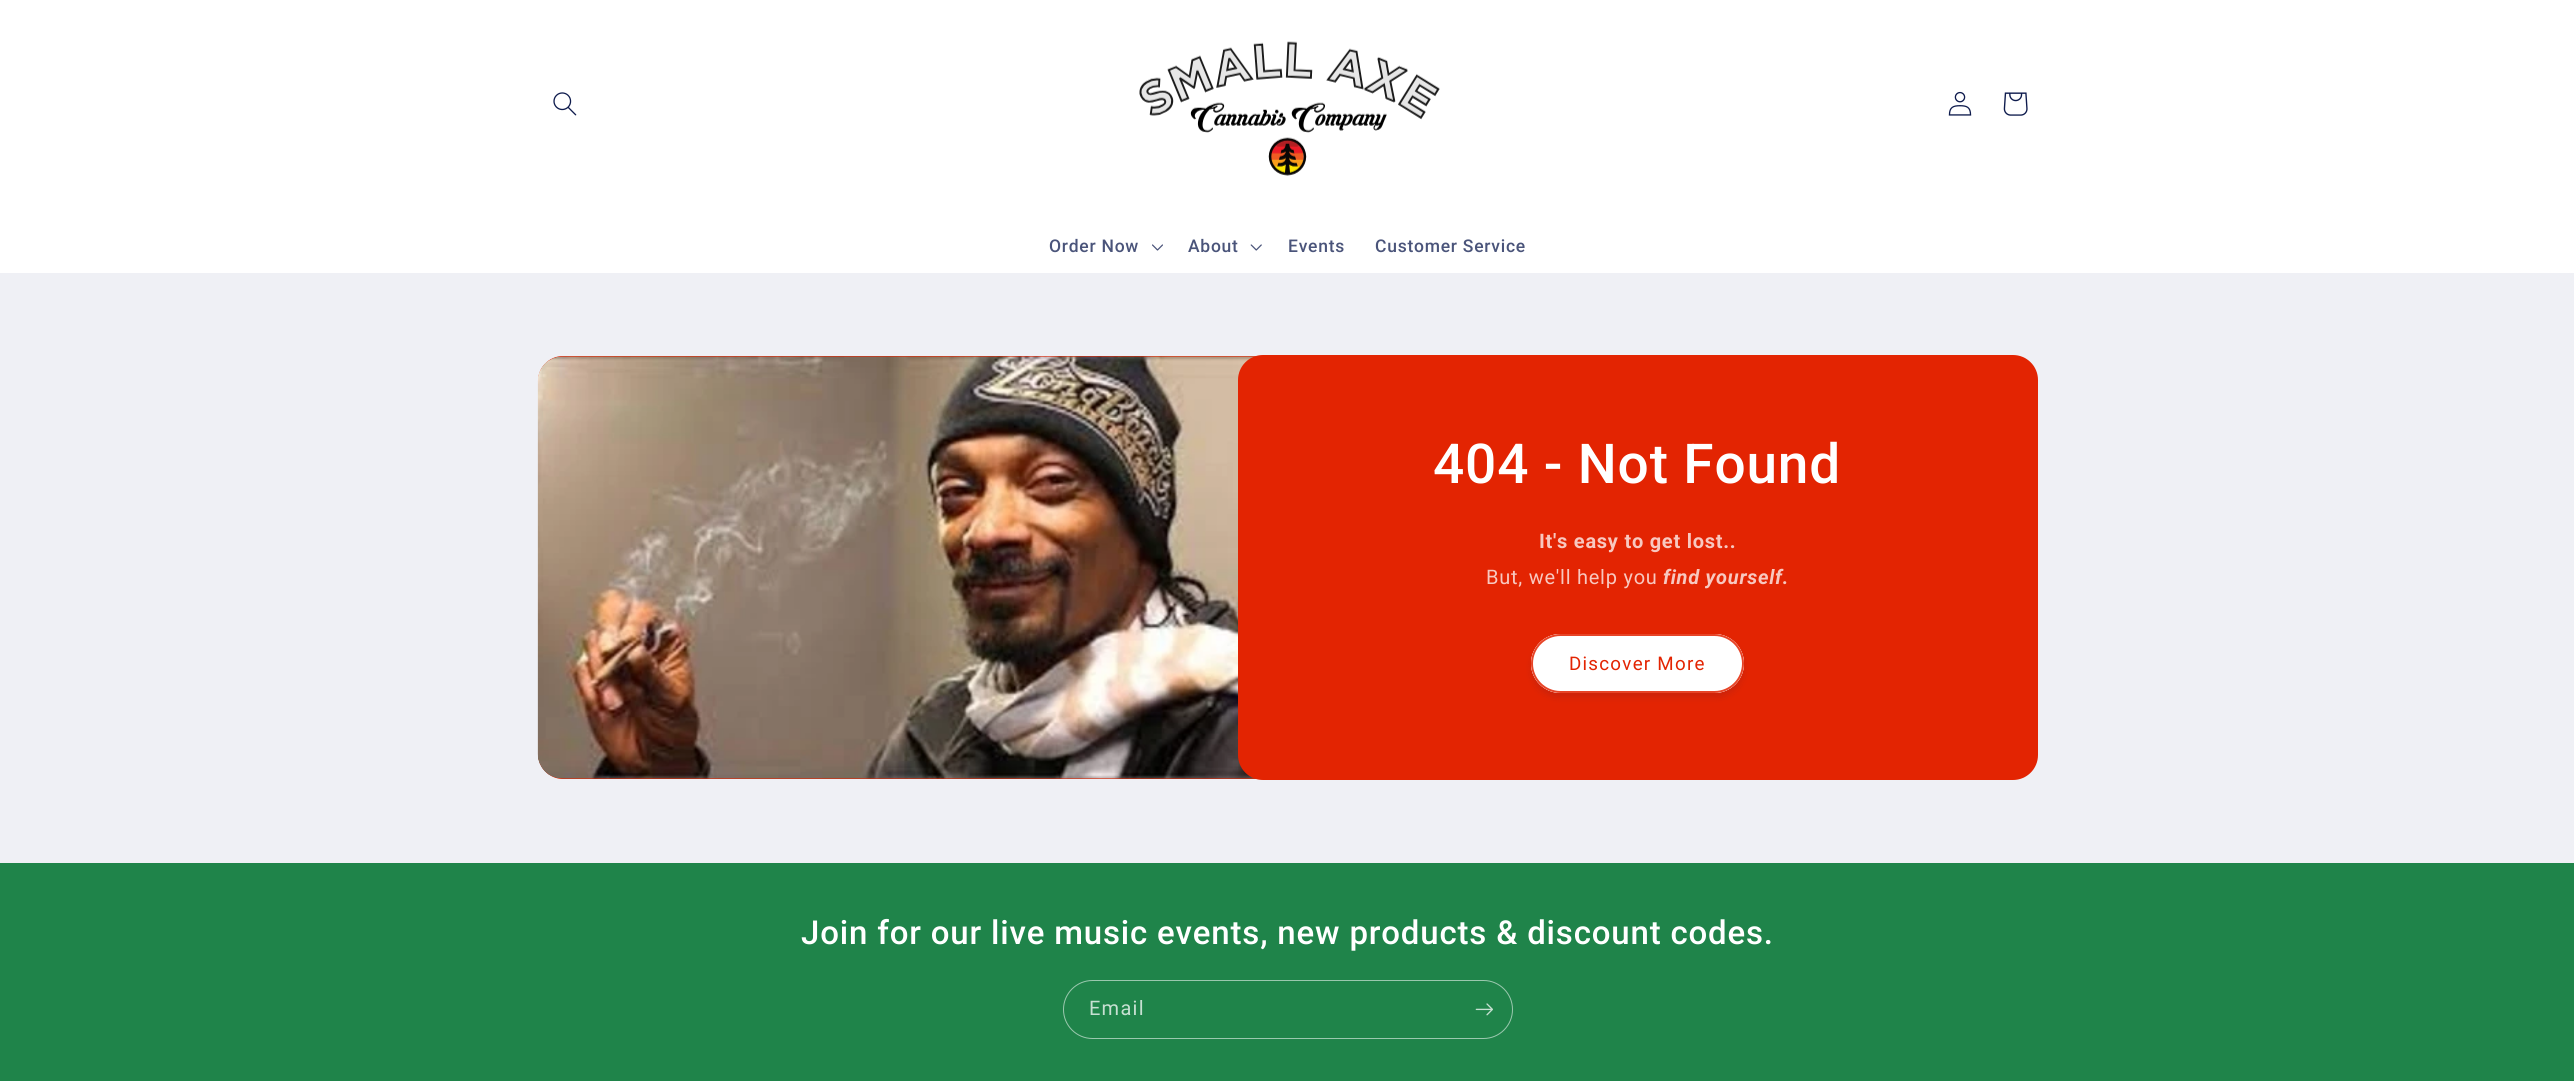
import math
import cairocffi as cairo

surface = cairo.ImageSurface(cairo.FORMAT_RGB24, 2574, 1081)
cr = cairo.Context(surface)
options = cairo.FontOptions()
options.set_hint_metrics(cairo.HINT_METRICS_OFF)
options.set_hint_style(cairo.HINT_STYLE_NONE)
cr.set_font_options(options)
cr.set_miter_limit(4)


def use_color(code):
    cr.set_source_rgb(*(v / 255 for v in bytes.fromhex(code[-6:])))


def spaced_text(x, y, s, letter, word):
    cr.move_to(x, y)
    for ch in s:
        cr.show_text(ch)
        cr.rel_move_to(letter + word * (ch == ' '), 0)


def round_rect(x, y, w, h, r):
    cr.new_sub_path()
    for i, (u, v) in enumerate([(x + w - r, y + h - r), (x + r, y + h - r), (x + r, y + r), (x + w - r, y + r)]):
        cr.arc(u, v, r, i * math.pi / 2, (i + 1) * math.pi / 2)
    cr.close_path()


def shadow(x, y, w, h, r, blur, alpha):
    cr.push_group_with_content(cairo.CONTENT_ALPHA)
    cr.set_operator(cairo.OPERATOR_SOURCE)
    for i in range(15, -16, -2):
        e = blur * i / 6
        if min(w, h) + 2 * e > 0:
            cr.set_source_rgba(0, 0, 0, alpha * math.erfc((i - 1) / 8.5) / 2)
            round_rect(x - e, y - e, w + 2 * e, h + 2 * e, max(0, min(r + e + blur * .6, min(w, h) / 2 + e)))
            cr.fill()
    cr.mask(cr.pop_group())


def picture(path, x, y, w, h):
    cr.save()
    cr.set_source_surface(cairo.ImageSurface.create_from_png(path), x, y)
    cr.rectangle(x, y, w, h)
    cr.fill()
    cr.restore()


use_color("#eff0f5")
cr.paint()
use_color("#ffffff")
cr.rectangle(0, 0, 2574, 273)
cr.fill()
picture("img1.png", 553, 92, 24, 24)
picture("img2.png", 1139, 41, 301, 135)
picture("img3.png", 1948, 91, 24, 25)
picture("img4.png", 2003, 92, 25, 24)
cr.select_font_face("Roboto Medium")
cr.set_font_size(17.5)
use_color("#4a547a")
spaced_text(1049, 252, "Order Now", 0.75, 0)
picture("img5.png", 1152, 244, 11, 7)
spaced_text(1188, 252, "About", 0.75, 0)
picture("img6.png", 1250, 244, 12, 7)
spaced_text(1288, 252, "Events", 0.75, 0)
spaced_text(1375, 252, "Customer Service", 0.75, 0)
use_color("#e32402")
round_rect(538, 356, 750, 423, 25)
cr.fill()
picture("img7.png", 537, 356, 719, 423)
round_rect(1238, 355, 800, 425, 25)
cr.fill()
cr.set_font_size(55)
use_color("#ffffff")
spaced_text(1433, 483, "404 - Not Found", 0.83, 0)
cr.select_font_face("Roboto", cairo.FONT_SLANT_NORMAL, cairo.FONT_WEIGHT_BOLD)
cr.set_font_size(20)
use_color("#f8c8c0")
spaced_text(1539, 548, "It's easy to get lost..", 0.75, 0)
cr.select_font_face("Roboto")
spaced_text(1486, 584, "But, we'll help you", 0.75, 0)
cr.select_font_face("Roboto", cairo.FONT_SLANT_ITALIC, cairo.FONT_WEIGHT_BOLD)
spaced_text(1663, 584, "find yourself.", 0.75, 0)
use_color("#0e1b4d")
shadow(1531, 639, 213, 59, 29.5, 3, 0.1)
use_color("#ffffff")
round_rect(1531, 634, 213, 59, 29.5)
cr.fill()
round_rect(1531.5, 634.5, 212, 58, 29)
cr.set_line_width(1)
cr.stroke()
round_rect(1532, 635, 211, 57, 28.5)
cr.set_source_rgba(0.89, 0.141, 0.008, 0.85)
cr.set_line_width(2)
cr.stroke()
cr.select_font_face("Roboto")
cr.set_font_size(18.75)
use_color("#e32402")
spaced_text(1569, 670, "Discover More", 1.25, 0)
use_color("#1f844a")
cr.rectangle(0, 863, 2574, 218)
cr.fill()
cr.select_font_face("Roboto Medium")
cr.set_font_size(33)
use_color("#ffffff")
spaced_text(801, 944, "Join for our live music events, new products & discount codes.", 0.83, 0)
round_rect(1063.5, 980.5, 449, 58, 29)
use_color("#9ac8ae")
cr.set_line_width(1)
cr.stroke()
cr.select_font_face("Roboto")
cr.set_font_size(20)
use_color("#c7e0d2")
spaced_text(1089, 1015, "Email", 1.25, 0)
picture("img8.png", 1475, 1003, 18, 13)
surface.write_to_png("result.png")
